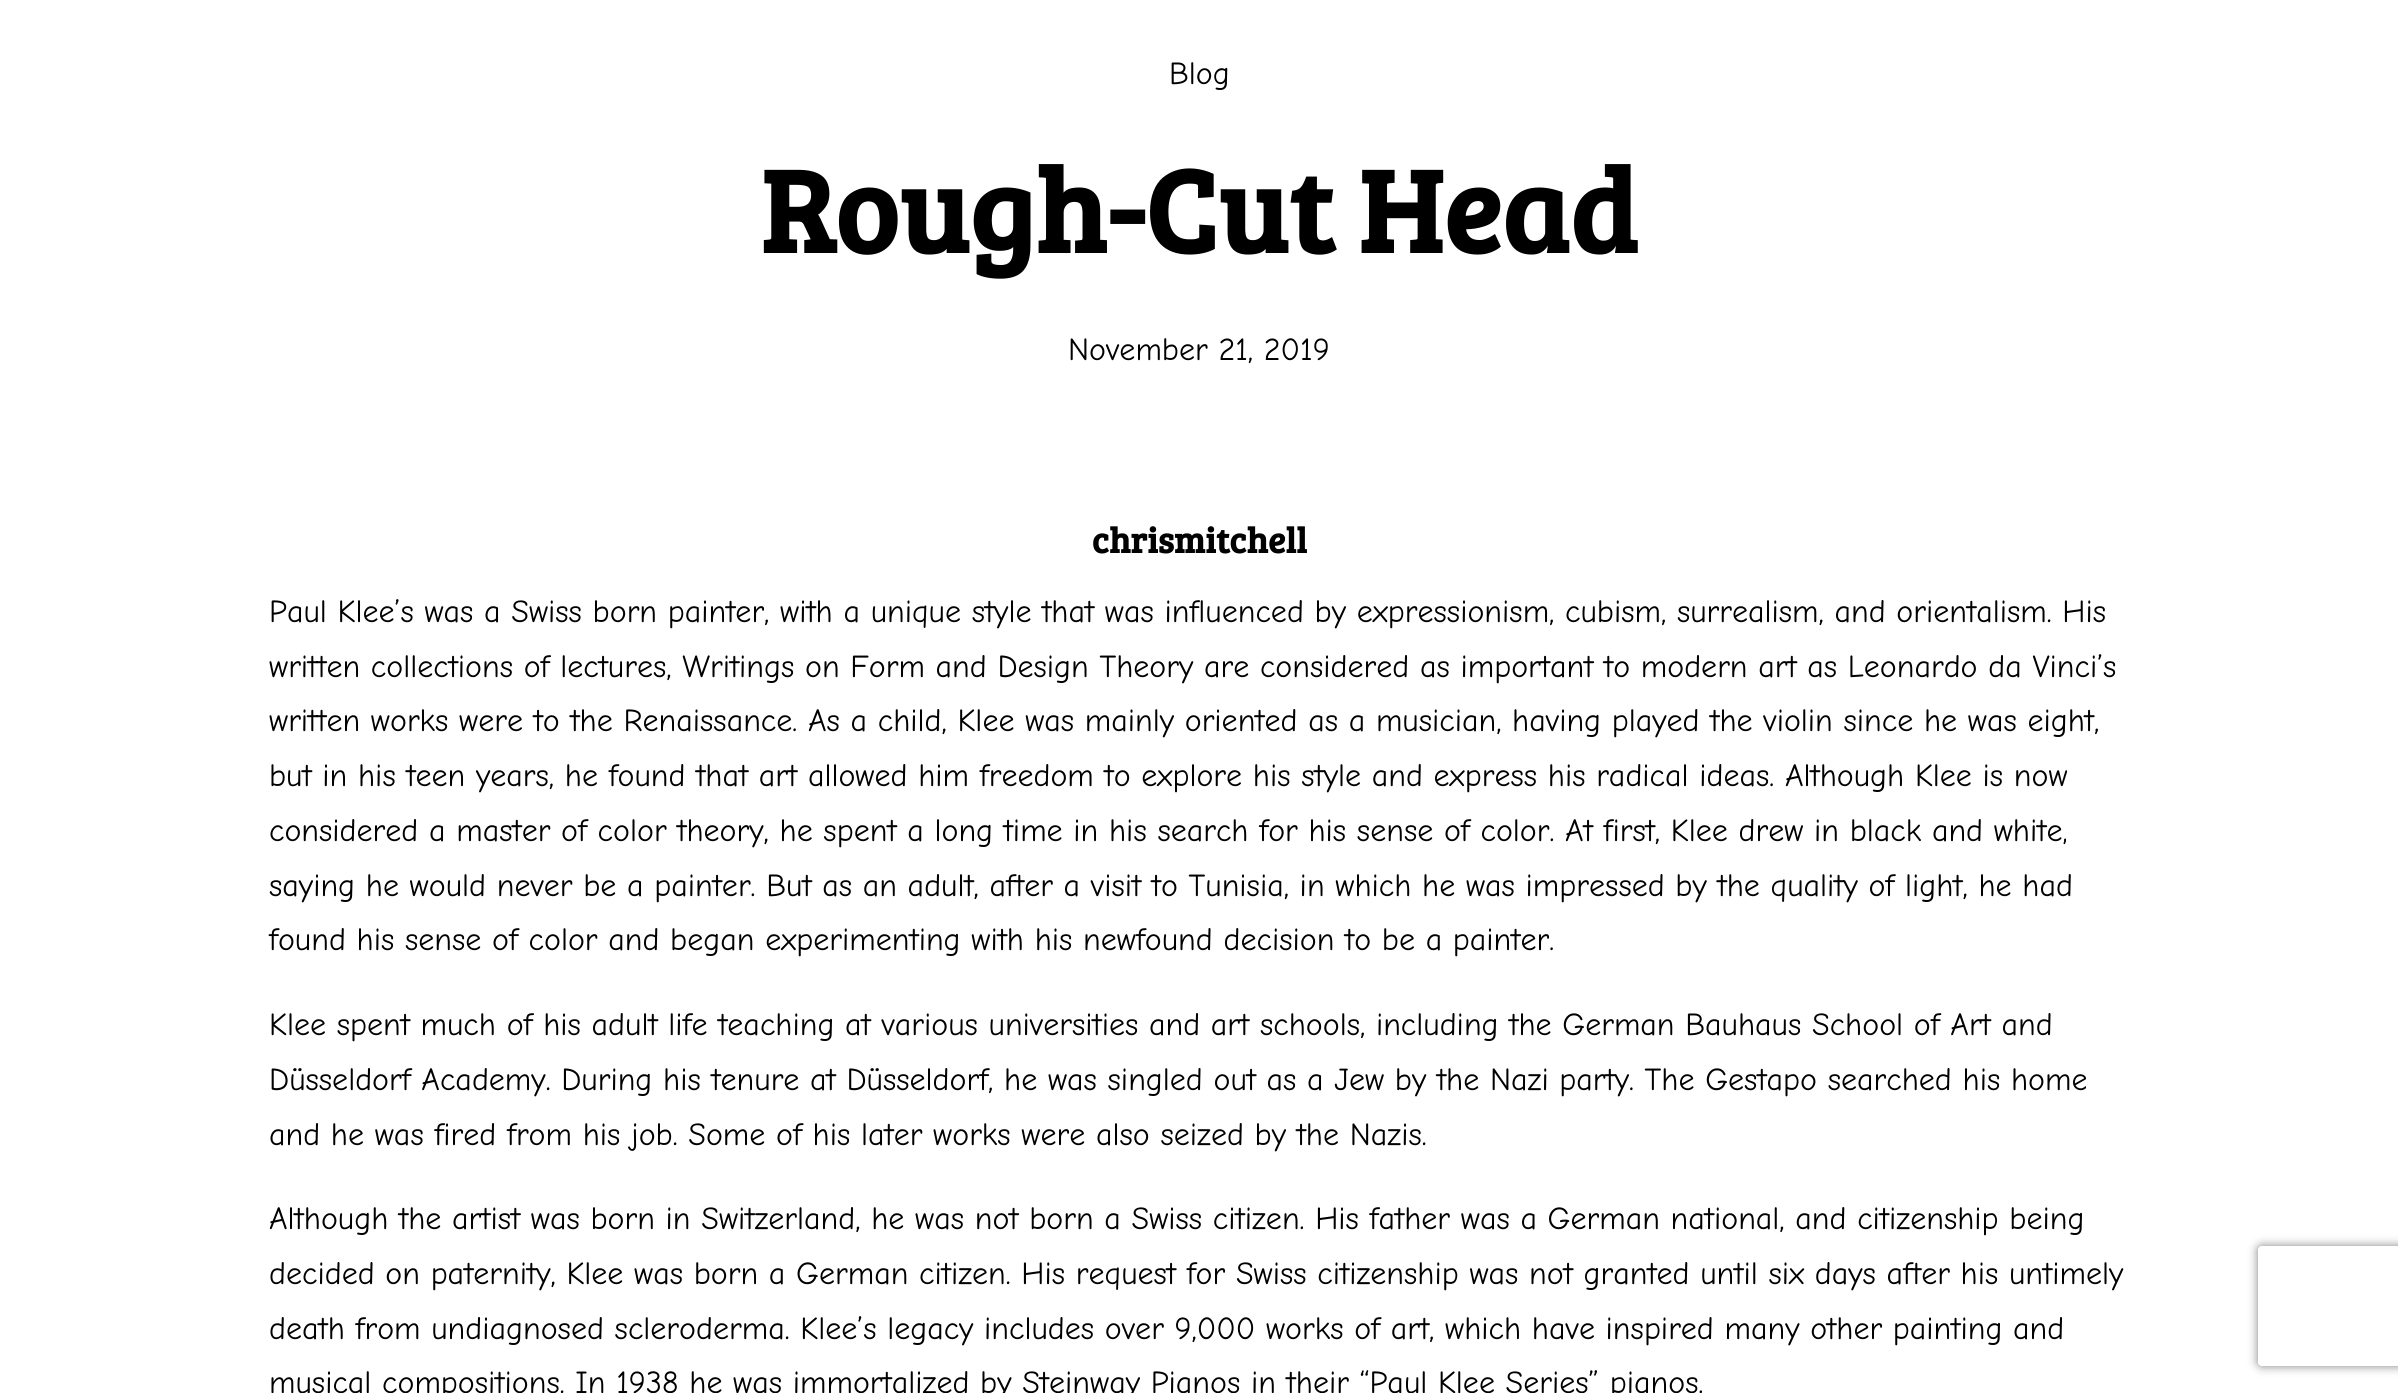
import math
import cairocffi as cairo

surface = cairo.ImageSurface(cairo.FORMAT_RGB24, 2398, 1393)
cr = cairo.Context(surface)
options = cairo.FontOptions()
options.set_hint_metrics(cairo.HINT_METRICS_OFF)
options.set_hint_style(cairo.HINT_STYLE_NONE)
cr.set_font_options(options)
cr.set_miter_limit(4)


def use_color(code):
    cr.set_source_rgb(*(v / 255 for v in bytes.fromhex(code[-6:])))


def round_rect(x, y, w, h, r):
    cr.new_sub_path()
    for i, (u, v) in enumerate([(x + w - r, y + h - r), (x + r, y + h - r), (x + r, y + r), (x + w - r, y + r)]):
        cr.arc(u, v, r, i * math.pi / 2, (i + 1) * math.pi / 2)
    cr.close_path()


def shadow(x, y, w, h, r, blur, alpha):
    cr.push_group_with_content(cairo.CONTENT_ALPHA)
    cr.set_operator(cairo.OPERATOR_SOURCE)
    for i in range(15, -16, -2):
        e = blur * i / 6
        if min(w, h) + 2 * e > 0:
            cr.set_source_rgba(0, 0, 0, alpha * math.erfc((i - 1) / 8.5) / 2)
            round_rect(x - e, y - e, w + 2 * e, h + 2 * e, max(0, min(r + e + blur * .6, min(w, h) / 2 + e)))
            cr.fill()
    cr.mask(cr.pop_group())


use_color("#ffffff")
cr.paint()
cr.select_font_face("Comic Neue")
cr.set_font_size(32)
use_color("#000000")
cr.move_to(1169, 84)
cr.show_text("Blog")
cr.select_font_face("Bree Serif", cairo.FONT_SLANT_NORMAL, cairo.FONT_WEIGHT_BOLD)
cr.set_font_size(120)
cr.move_to(760, 253)
cr.show_text("Rough-Cut Head")
cr.select_font_face("Comic Neue")
cr.set_font_size(32)
cr.move_to(1068, 360)
cr.show_text("November 21, 2019")
cr.select_font_face("Bree Serif", cairo.FONT_SLANT_NORMAL, cairo.FONT_WEIGHT_BOLD)
cr.set_font_size(36)
cr.move_to(1092, 553)
cr.show_text("chrismitchell")
cr.select_font_face("Comic Neue")
cr.set_font_size(32)
cr.move_to(269, 622)
cr.show_text("Paul Klee’s was a Swiss born painter, with a unique style that was influenced by expressionism, cubism, surrealism, and orientalism. His")
cr.move_to(269, 677)
cr.show_text("written collections of lectures, Writings on Form and Design Theory are considered as important to modern art as Leonardo da Vinci’s")
cr.move_to(269, 731)
cr.show_text("written works were to the Renaissance. As a child, Klee was mainly oriented as a musician, having played the violin since he was eight,")
cr.move_to(269, 786)
cr.show_text("but in his teen years, he found that art allowed him freedom to explore his style and express his radical ideas. Although Klee is now")
cr.move_to(269, 841)
cr.show_text("considered a master of color theory, he spent a long time in his search for his sense of color. At first, Klee drew in black and white,")
cr.move_to(269, 896)
cr.show_text("saying he would never be a painter. But as an adult, after a visit to Tunisia, in which he was impressed by the quality of light, he had")
cr.move_to(269, 950)
cr.show_text("found his sense of color and began experimenting with his newfound decision to be a painter.")
cr.move_to(269, 1035)
cr.show_text("Klee spent much of his adult life teaching at various universities and art schools, including the German Bauhaus School of Art and")
cr.move_to(269, 1090)
cr.show_text("Düsseldorf Academy. During his tenure at Düsseldorf, he was singled out as a Jew by the Nazi party. The Gestapo searched his home")
cr.move_to(269, 1145)
cr.show_text("and he was fired from his job. Some of his later works were also seized by the Nazis.")
cr.move_to(269, 1229)
cr.show_text("Although the artist was born in Switzerland, he was not born a Swiss citizen. His father was a German national, and citizenship being")
cr.move_to(269, 1284)
cr.show_text("decided on paternity, Klee was born a German citizen. His request for Swiss citizenship was not granted until six days after his untimely")
cr.move_to(269, 1339)
cr.show_text("death from undiagnosed scleroderma. Klee’s legacy includes over 9,000 works of art, which have inspired many other painting and")
cr.move_to(269, 1393)
cr.show_text("musical compositions. In 1938 he was immortalized by Steinway Pianos in their “Paul Klee Series” pianos.")
cr.save()
cr.set_fill_rule(cairo.FILL_RULE_EVEN_ODD)
cr.new_path()
cr.move_to(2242, 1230)
cr.line_to(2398, 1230)
cr.line_to(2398, 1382)
cr.line_to(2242, 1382)
cr.close_path()
cr.move_to(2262, 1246)
cr.line_to(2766, 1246)
cr.curve_to(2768, 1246, 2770, 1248, 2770, 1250)
cr.line_to(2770, 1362)
cr.curve_to(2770, 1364, 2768, 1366, 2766, 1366)
cr.line_to(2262, 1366)
cr.curve_to(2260, 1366, 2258, 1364, 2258, 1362)
cr.line_to(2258, 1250)
cr.curve_to(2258, 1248, 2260, 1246, 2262, 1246)
cr.close_path()
cr.clip()
use_color("#808080")
shadow(2258, 1246, 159, 120, 4, 5, 1)
cr.restore()
surface.write_to_png("result.png")
